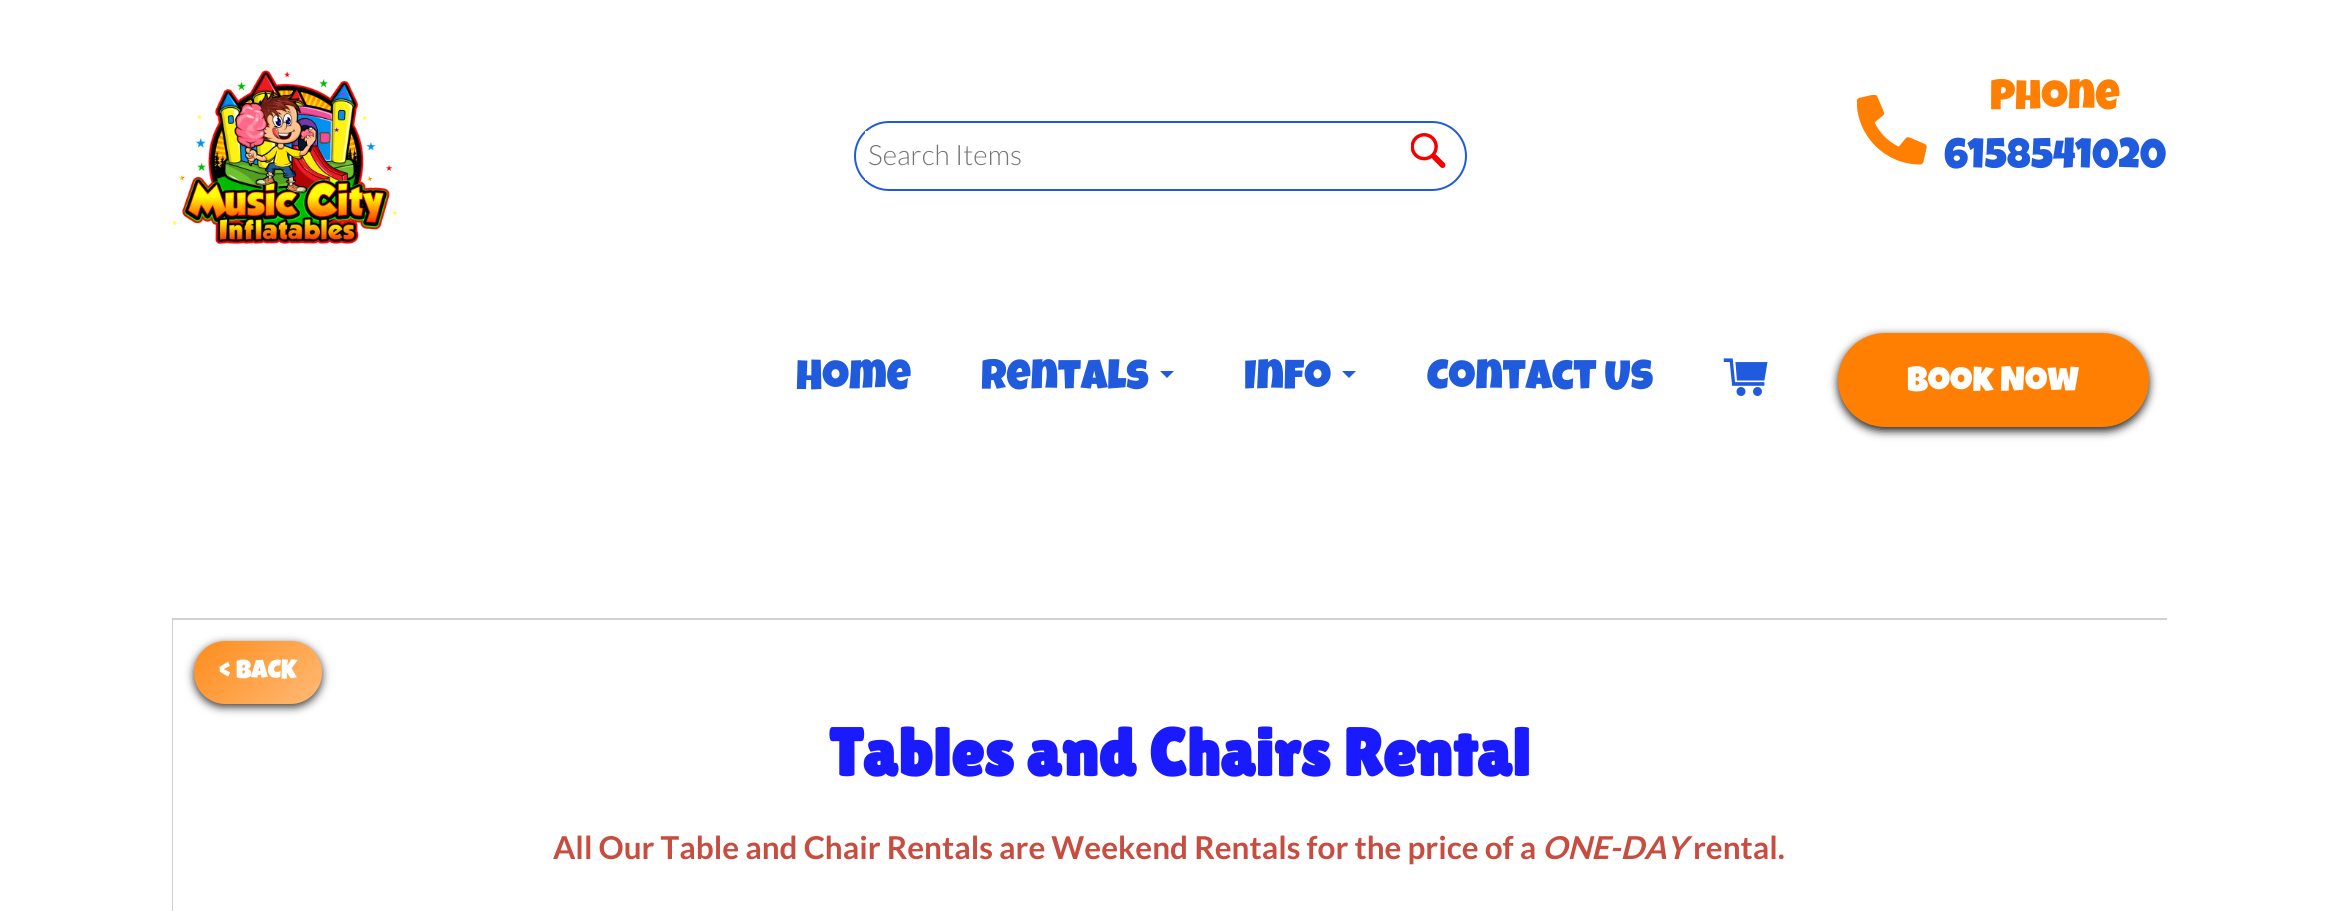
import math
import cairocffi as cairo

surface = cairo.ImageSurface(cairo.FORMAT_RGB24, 2338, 911)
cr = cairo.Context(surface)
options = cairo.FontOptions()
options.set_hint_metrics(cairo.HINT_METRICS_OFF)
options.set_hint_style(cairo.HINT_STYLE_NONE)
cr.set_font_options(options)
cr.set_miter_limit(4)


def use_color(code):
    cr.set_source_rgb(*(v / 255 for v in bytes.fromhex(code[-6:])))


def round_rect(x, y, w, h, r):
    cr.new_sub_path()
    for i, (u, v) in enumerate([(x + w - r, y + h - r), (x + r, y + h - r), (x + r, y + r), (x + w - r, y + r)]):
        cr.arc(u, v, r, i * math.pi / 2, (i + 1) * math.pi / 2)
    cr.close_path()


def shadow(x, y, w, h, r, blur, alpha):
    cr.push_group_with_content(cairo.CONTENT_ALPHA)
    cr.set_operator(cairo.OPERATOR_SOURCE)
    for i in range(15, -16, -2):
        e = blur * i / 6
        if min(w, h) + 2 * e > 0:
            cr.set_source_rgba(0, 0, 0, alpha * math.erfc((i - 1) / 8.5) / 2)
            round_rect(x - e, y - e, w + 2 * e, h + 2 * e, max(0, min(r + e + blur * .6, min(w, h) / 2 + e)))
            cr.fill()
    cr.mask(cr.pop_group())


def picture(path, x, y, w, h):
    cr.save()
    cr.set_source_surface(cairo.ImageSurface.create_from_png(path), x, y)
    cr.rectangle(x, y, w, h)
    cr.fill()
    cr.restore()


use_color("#ffffff")
cr.paint()
picture("img1.png", 172, 70, 226, 175)
round_rect(855, 122, 611, 68, 34)
use_color("#205bdd")
cr.stroke()
use_color("#ffffff")
cr.rectangle(865, 131, 3, 49)
cr.fill()
cr.select_font_face("Lato Light")
cr.set_font_size(28)
use_color("#757575")
cr.move_to(868, 165)
cr.show_text("Search Items")
picture("img2.png", 1411, 133, 35, 35)
picture("img3.png", 1857, 95, 70, 70)
cr.select_font_face("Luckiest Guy")
cr.set_font_size(42)
use_color("#ff7f02")
cr.move_to(1990, 109)
cr.show_text("Phone")
use_color("#205bdd")
cr.move_to(1944, 168)
cr.show_text("6158541020")
cr.move_to(796, 389)
cr.show_text("Home")
cr.move_to(981, 389)
cr.show_text("Rentals")
cr.new_path()
cr.move_to(1160, 371)
cr.line_to(1174, 371)
cr.line_to(1167, 378)
cr.close_path()
cr.fill()
cr.move_to(1244, 389)
cr.show_text("Info")
cr.new_path()
cr.move_to(1342, 371)
cr.line_to(1356, 371)
cr.line_to(1349, 378)
cr.close_path()
cr.fill()
cr.move_to(1427, 389)
cr.show_text("Contact Us")
picture("img4.png", 1723, 358, 45, 38)
use_color("#222222")
shadow(1838, 336, 311, 95, 47.5, 4.5, 1)
use_color("#ff7f02")
round_rect(1838, 333, 311, 94, 47)
cr.fill()
cr.set_font_size(35)
use_color("#ffffff")
cr.move_to(1907, 391)
cr.show_text("Book Now")
use_color("#d1d1d1")
cr.rectangle(172, 618, 1995, 2)
cr.fill()
cr.rectangle(172, 618, 2, 293)
cr.fill()
use_color("#ffffff")
cr.rectangle(173, 620, 1, 291)
cr.fill()
use_color("#383838")
shadow(194, 644, 128, 63, 31.5, 4.5, 1)
use_color("#ff8c1b")
round_rect(194, 641, 128, 63, 31.5)
cr.fill()
gradient = cairo.LinearGradient(227, 608, 417, 799)
gradient.add_color_stop_rgba(0, 1, 1, 1, 0)
gradient.add_color_stop_rgba(0.5, 1, 1, 1, 0.4)
gradient.add_color_stop_rgba(1, 1, 1, 1, 0)
cr.set_source(gradient)
round_rect(194, 641, 128, 63, 31.5)
cr.fill()
cr.set_font_size(26)
use_color("#ffffff")
cr.move_to(219, 678)
cr.show_text("< BACK")
cr.select_font_face("Lilita One", cairo.FONT_SLANT_NORMAL, cairo.FONT_WEIGHT_BOLD)
cr.set_font_size(67.25)
use_color("#1a1aff")
cr.move_to(829, 776)
cr.show_text("Tables and Chairs Rental")
cr.select_font_face("Lato", cairo.FONT_SLANT_NORMAL, cairo.FONT_WEIGHT_BOLD)
cr.set_font_size(31.5)
use_color("#c64d40")
cr.move_to(553, 859)
cr.show_text("All Our Table and Chair Rentals are Weekend Rentals for the price of a")
cr.select_font_face("Lato", cairo.FONT_SLANT_ITALIC, cairo.FONT_WEIGHT_BOLD)
cr.move_to(1542, 859)
cr.show_text("ONE-DAY")
cr.select_font_face("Lato", cairo.FONT_SLANT_NORMAL, cairo.FONT_WEIGHT_BOLD)
cr.move_to(1693, 859)
cr.show_text("rental.")
surface.write_to_png("result.png")
